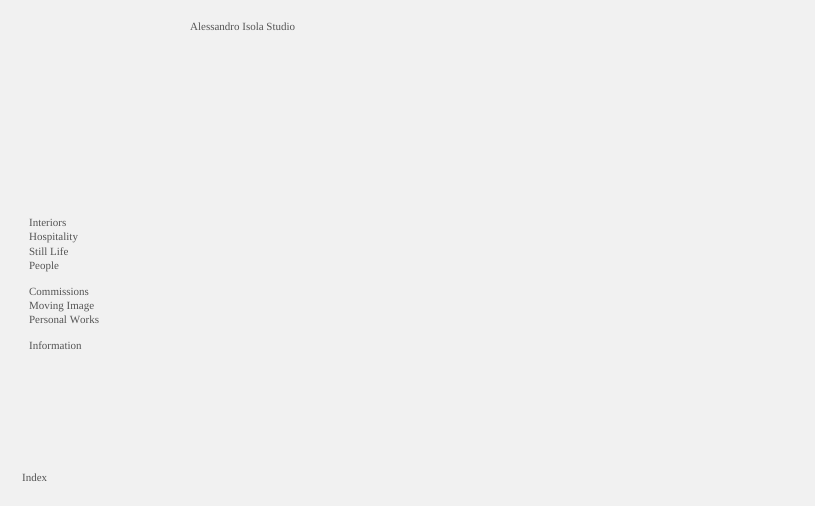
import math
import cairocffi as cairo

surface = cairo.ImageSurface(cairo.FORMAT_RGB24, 815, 506)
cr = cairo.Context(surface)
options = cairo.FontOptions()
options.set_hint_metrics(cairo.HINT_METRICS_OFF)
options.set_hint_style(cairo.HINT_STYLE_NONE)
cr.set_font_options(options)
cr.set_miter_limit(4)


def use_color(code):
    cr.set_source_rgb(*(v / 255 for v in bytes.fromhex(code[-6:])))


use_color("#f1f1f1")
cr.paint()
cr.select_font_face("Liberation Serif")
cr.set_font_size(11)
use_color("#545454")
cr.move_to(190, 30)
cr.show_text("Alessandro Isola Studio")
cr.move_to(29, 226)
cr.show_text("Interiors")
cr.move_to(29, 240)
cr.show_text("Hospitality")
cr.move_to(29, 255)
cr.show_text("Still Life")
cr.move_to(29, 269)
cr.show_text("People")
cr.move_to(29, 295)
cr.show_text("Commissions")
cr.move_to(29, 309)
cr.show_text("Moving Image")
cr.move_to(29, 323)
cr.show_text("Personal Works")
cr.move_to(29, 349)
cr.show_text("Information")
cr.move_to(22, 481)
cr.show_text("Index")
surface.write_to_png("result.png")
